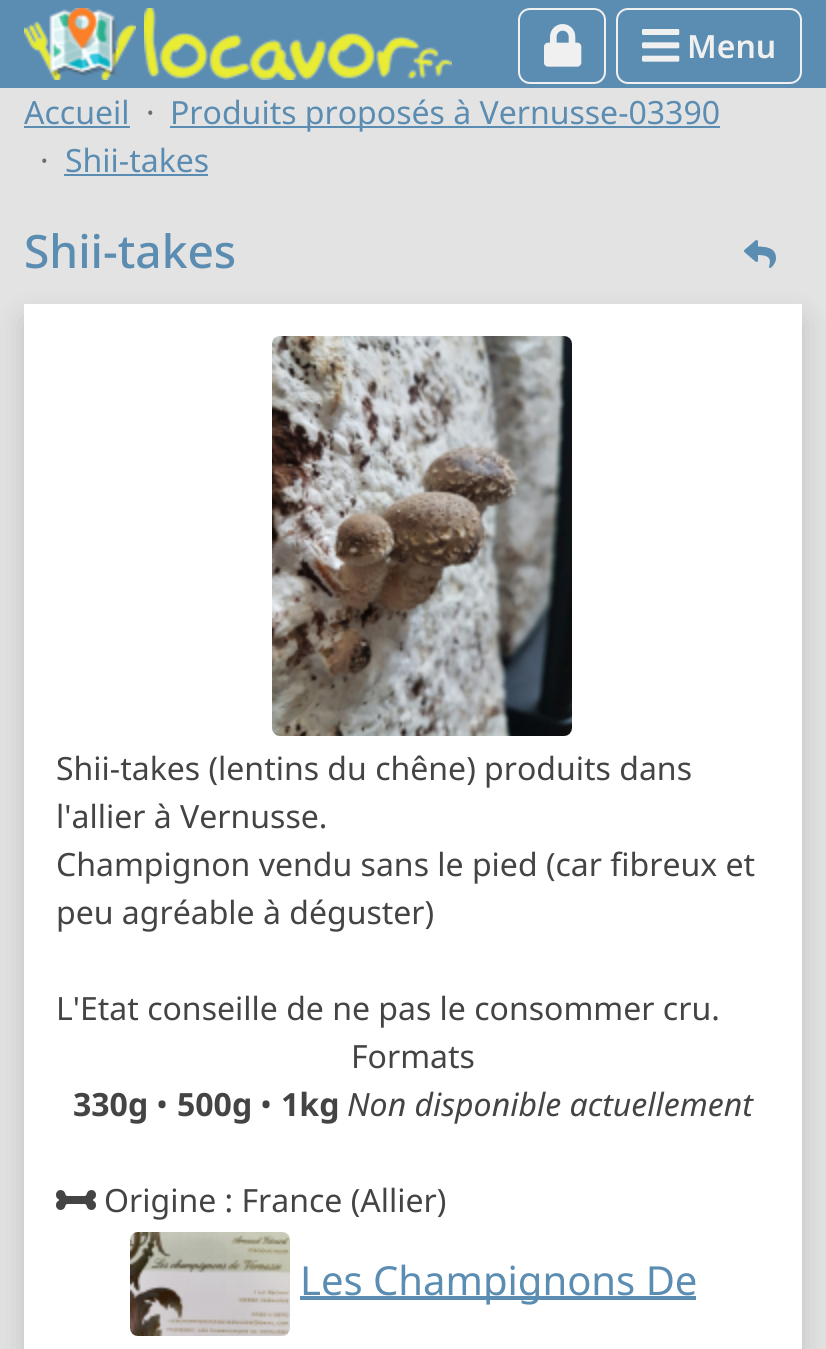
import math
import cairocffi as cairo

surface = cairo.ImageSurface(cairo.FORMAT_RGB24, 826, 1349)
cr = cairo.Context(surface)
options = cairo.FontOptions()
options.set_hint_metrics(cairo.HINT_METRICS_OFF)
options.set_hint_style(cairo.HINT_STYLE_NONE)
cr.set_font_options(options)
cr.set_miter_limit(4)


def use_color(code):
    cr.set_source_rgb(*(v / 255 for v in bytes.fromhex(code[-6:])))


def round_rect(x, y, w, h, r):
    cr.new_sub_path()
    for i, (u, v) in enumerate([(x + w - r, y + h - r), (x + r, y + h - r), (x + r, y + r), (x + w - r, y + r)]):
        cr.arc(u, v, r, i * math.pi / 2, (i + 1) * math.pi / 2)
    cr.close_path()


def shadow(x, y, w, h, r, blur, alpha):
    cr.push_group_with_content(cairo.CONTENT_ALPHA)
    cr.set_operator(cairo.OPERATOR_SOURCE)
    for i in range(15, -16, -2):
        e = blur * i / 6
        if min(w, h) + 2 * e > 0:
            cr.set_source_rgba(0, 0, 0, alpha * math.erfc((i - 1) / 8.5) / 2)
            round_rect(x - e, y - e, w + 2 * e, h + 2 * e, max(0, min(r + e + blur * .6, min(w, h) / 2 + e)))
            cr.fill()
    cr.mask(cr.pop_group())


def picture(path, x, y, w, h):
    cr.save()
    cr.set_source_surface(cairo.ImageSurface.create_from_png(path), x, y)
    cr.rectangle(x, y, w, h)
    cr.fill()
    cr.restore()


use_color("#e3e3e3")
cr.paint()
use_color("#5b8cb1")
cr.rectangle(0, 0, 826, 88)
cr.fill()
picture("img1.png", 24, 8, 112, 72)
picture("img2.png", 144, 8, 308, 72)
round_rect(519, 9, 86, 74, 11)
use_color("#f0f0f0")
cr.stroke()
picture("img3.png", 544, 24, 38, 43)
round_rect(617, 9, 184, 74, 11)
cr.stroke()
picture("img4.png", 642, 29, 38, 33)
cr.select_font_face("Noto Sans SemiBold")
cr.set_font_size(32)
cr.move_to(687, 58)
cr.show_text("Menu")
cr.select_font_face("Noto Sans")
use_color("#5b8cb1")
cr.move_to(24, 124)
cr.show_text("Accueil")
cr.rectangle(24, 126, 106, 2)
cr.fill()
use_color("#6c6c6c")
cr.move_to(146, 124)
cr.show_text("·")
use_color("#5b8cb1")
cr.rectangle(170, 126, 550, 2)
cr.fill()
cr.move_to(170, 124)
cr.show_text("Produits proposés à Vernusse-03390")
use_color("#6c6c6c")
cr.move_to(40, 172)
cr.show_text("·")
use_color("#5b8cb1")
cr.move_to(65, 172)
cr.show_text("Shii-takes")
cr.rectangle(64, 174, 144, 2)
cr.fill()
cr.select_font_face("Noto Sans Medium")
cr.set_font_size(46)
cr.move_to(24, 268)
cr.show_text("Shii-takes")
picture("img5.png", 744, 240, 32, 28)
use_color("#000000")
shadow(24, 320, 778, 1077, 0, 16, 0.15)
use_color("#ffffff")
cr.rectangle(24, 304, 778, 1045)
cr.fill()
picture("img6.png", 272, 336, 300, 400)
cr.select_font_face("Noto Sans")
cr.set_font_size(32)
use_color("#444444")
cr.move_to(56, 780)
cr.show_text("Shii-takes (lentins du chêne) produits dans")
cr.move_to(56, 828)
cr.show_text("l'allier à Vernusse.")
cr.move_to(56, 876)
cr.show_text("Champignon vendu sans le pied (car fibreux et")
cr.move_to(56, 924)
cr.show_text("peu agréable à déguster)")
cr.move_to(56, 1020)
cr.show_text("L'Etat conseille de ne pas le consommer cru.")
cr.move_to(351, 1068)
cr.show_text("Formats")
cr.select_font_face("Noto Sans", cairo.FONT_SLANT_NORMAL, cairo.FONT_WEIGHT_BOLD)
cr.move_to(73, 1116)
cr.show_text("330g")
cr.select_font_face("Noto Sans")
cr.move_to(156, 1116)
cr.show_text("•")
cr.select_font_face("Noto Sans", cairo.FONT_SLANT_NORMAL, cairo.FONT_WEIGHT_BOLD)
cr.move_to(177, 1116)
cr.show_text("500g")
cr.select_font_face("Noto Sans")
cr.move_to(260, 1116)
cr.show_text("•")
cr.select_font_face("Noto Sans", cairo.FONT_SLANT_NORMAL, cairo.FONT_WEIGHT_BOLD)
cr.move_to(281, 1116)
cr.show_text("1kg")
cr.select_font_face("Noto Sans", cairo.FONT_SLANT_ITALIC)
cr.move_to(347, 1116)
cr.show_text("Non disponible actuellement")
picture("img7.png", 56, 1190, 40, 20)
cr.select_font_face("Noto Sans")
cr.move_to(104, 1212)
cr.show_text("Origine : France (Allier)")
picture("img8.png", 130, 1232, 160, 104)
use_color("#5b8cb1")
cr.rectangle(300, 1296, 396, 4)
cr.fill()
cr.set_font_size(40)
cr.move_to(300, 1295)
cr.show_text("Les Champignons De")
surface.write_to_png("result.png")
